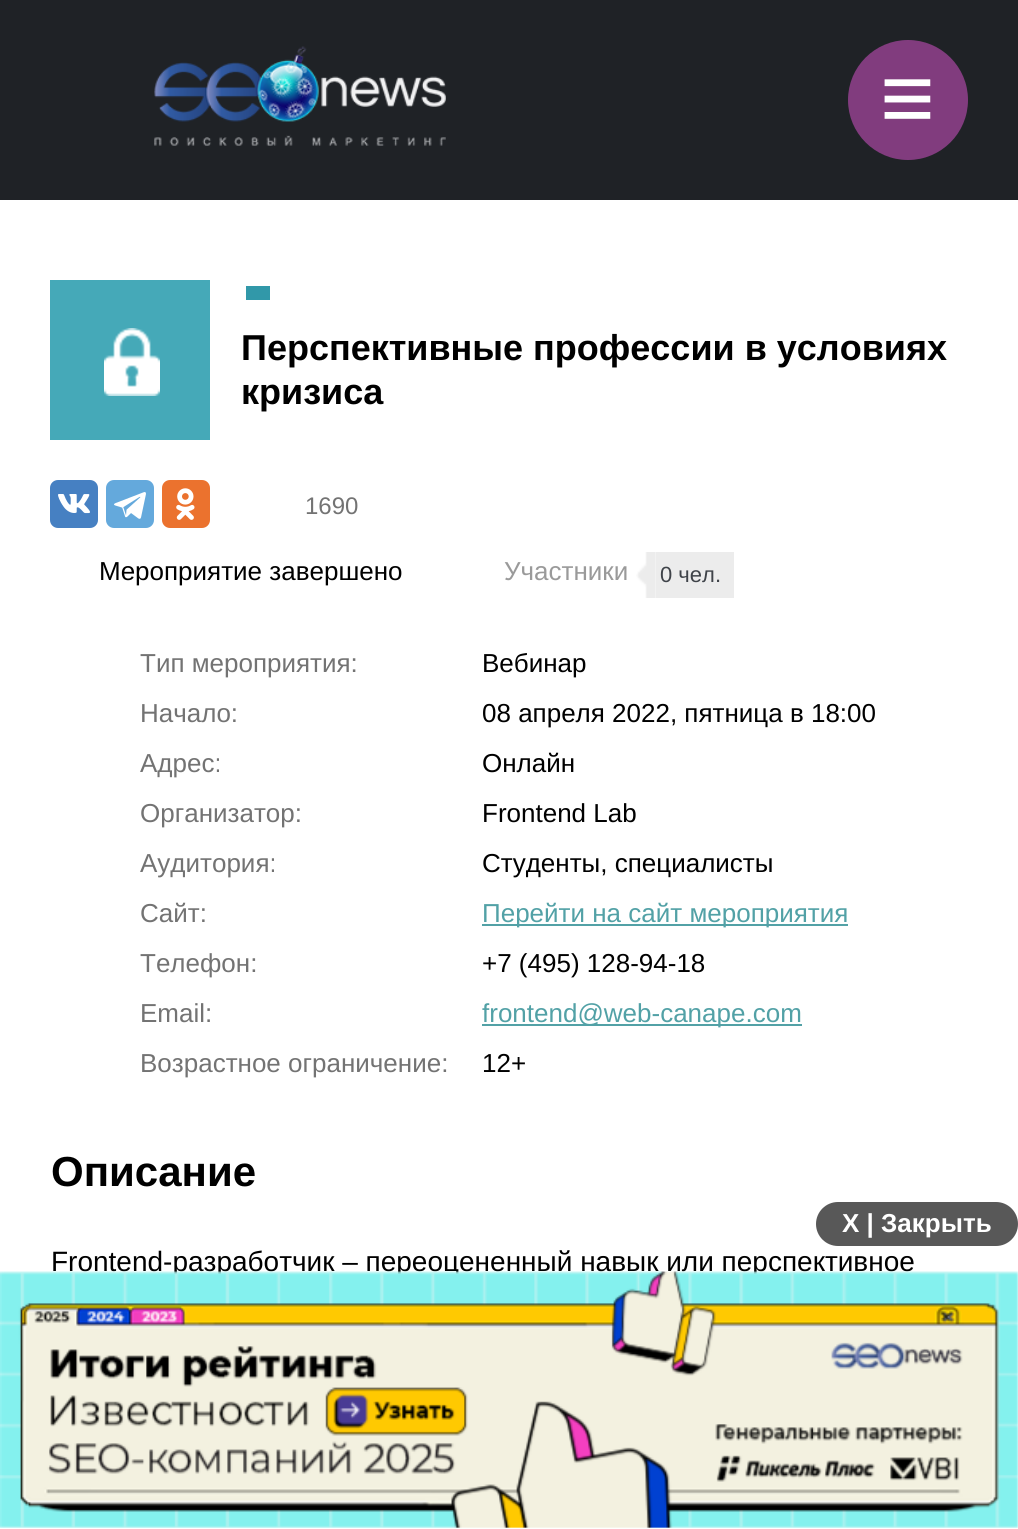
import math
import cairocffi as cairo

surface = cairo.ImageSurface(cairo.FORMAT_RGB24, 1018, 1529)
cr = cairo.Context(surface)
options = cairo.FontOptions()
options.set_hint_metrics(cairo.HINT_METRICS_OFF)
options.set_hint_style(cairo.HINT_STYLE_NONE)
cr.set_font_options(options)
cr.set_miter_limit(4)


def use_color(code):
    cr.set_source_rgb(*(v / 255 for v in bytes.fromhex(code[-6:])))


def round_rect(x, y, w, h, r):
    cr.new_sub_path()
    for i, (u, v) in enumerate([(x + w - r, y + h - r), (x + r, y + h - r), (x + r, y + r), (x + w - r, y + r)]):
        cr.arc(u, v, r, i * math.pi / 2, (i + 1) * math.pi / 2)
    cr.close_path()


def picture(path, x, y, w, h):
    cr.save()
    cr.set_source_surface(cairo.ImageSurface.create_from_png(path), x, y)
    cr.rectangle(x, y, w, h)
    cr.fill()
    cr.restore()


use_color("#ffffff")
cr.paint()
use_color("#1f2226")
cr.rectangle(0, 0, 1018, 200)
cr.fill()
picture("img1.png", 154, 46, 292, 100)
use_color("#813c7e")
cr.arc(908, 100, 60, 0, 2 * math.pi)
cr.fill()
cr.select_font_face("Liberation Sans")
cr.set_font_size(94)
use_color("#ffffff")
cr.move_to(880, 130)
cr.show_text("≡")
use_color("#45a9b8")
cr.rectangle(50, 280, 160, 160)
cr.fill()
picture("img2.png", 104, 328, 56, 68)
use_color("#3198a9")
cr.rectangle(246, 286, 24, 14)
cr.fill()
cr.select_font_face("Liberation Sans", cairo.FONT_SLANT_NORMAL, cairo.FONT_WEIGHT_BOLD)
cr.set_font_size(36)
use_color("#000000")
cr.move_to(241, 360)
cr.show_text("Перспективные профессии в условиях")
cr.move_to(241, 404)
cr.show_text("кризиса")
use_color("#4680c2")
round_rect(50, 480, 48, 48, 8)
cr.fill()
picture("img3.png", 58, 494, 32, 20)
use_color("#64a9dc")
round_rect(106, 480, 48, 48, 8)
cr.fill()
picture("img4.png", 114, 492, 32, 27)
use_color("#eb722e")
round_rect(162, 480, 48, 48, 8)
cr.fill()
picture("img5.png", 176, 488, 19, 32)
cr.select_font_face("Liberation Sans")
cr.set_font_size(24)
use_color("#737373")
cr.move_to(305, 514)
cr.show_text("1690")
cr.set_font_size(26)
use_color("#000000")
cr.move_to(99, 580)
cr.show_text("Мероприятие завершено")
use_color("#9a9a9a")
cr.move_to(504, 580)
cr.show_text("Участники")
picture("img6.png", 636, 552, 20, 46)
use_color("#ececec")
cr.rectangle(656, 552, 78, 46)
cr.fill()
cr.set_font_size(22)
use_color("#3f4349")
cr.move_to(660, 582)
cr.show_text("0 чел.")
cr.set_font_size(26)
use_color("#737373")
cr.move_to(140, 672)
cr.show_text("Тип мероприятия:")
use_color("#000000")
cr.move_to(482, 672)
cr.show_text("Вебинар")
use_color("#737373")
cr.move_to(140, 722)
cr.show_text("Начало:")
use_color("#000000")
cr.move_to(482, 722)
cr.show_text("08 апреля 2022, пятница в 18:00")
use_color("#737373")
cr.move_to(140, 772)
cr.show_text("Адрес:")
use_color("#000000")
cr.move_to(482, 772)
cr.show_text("Онлайн")
use_color("#737373")
cr.move_to(140, 822)
cr.show_text("Организатор:")
use_color("#000000")
cr.move_to(482, 822)
cr.show_text("Frontend Lab")
use_color("#737373")
cr.move_to(140, 872)
cr.show_text("Аудитория:")
use_color("#000000")
cr.move_to(482, 872)
cr.show_text("Студенты, специалисты")
use_color("#737373")
cr.move_to(140, 922)
cr.show_text("Сайт:")
use_color("#52a1a6")
cr.rectangle(482, 924, 366, 2)
cr.fill()
cr.move_to(482, 922)
cr.show_text("Перейти на сайт мероприятия")
use_color("#737373")
cr.move_to(140, 972)
cr.show_text("Телефон:")
use_color("#000000")
cr.move_to(482, 972)
cr.show_text("+7 (495) 128-94-18")
use_color("#737373")
cr.move_to(140, 1022)
cr.show_text("Email:")
use_color("#52a1a6")
cr.rectangle(482, 1024, 320, 2)
cr.fill()
cr.move_to(482, 1022)
cr.show_text("frontend@web-canape.com")
use_color("#737373")
cr.move_to(140, 1072)
cr.show_text("Возрастное ограничение:")
use_color("#000000")
cr.move_to(482, 1072)
cr.show_text("12+")
cr.select_font_face("Liberation Sans", cairo.FONT_SLANT_NORMAL, cairo.FONT_WEIGHT_BOLD)
cr.set_font_size(42)
cr.move_to(51, 1186)
cr.show_text("Описание")
cr.select_font_face("Liberation Sans")
cr.set_font_size(28)
cr.move_to(51, 1271)
cr.show_text("Frontend-разработчик – переоцененный навык или перспективное")
use_color("#585858")
round_rect(816, 1202, 202, 44, 22)
cr.fill()
cr.select_font_face("Liberation Sans", cairo.FONT_SLANT_NORMAL, cairo.FONT_WEIGHT_BOLD)
cr.set_font_size(26)
use_color("#ffffff")
cr.move_to(842, 1232)
cr.show_text("X | Закрыть")
picture("img7.png", 0, 1271, 1018, 257)
surface.write_to_png("result.png")
